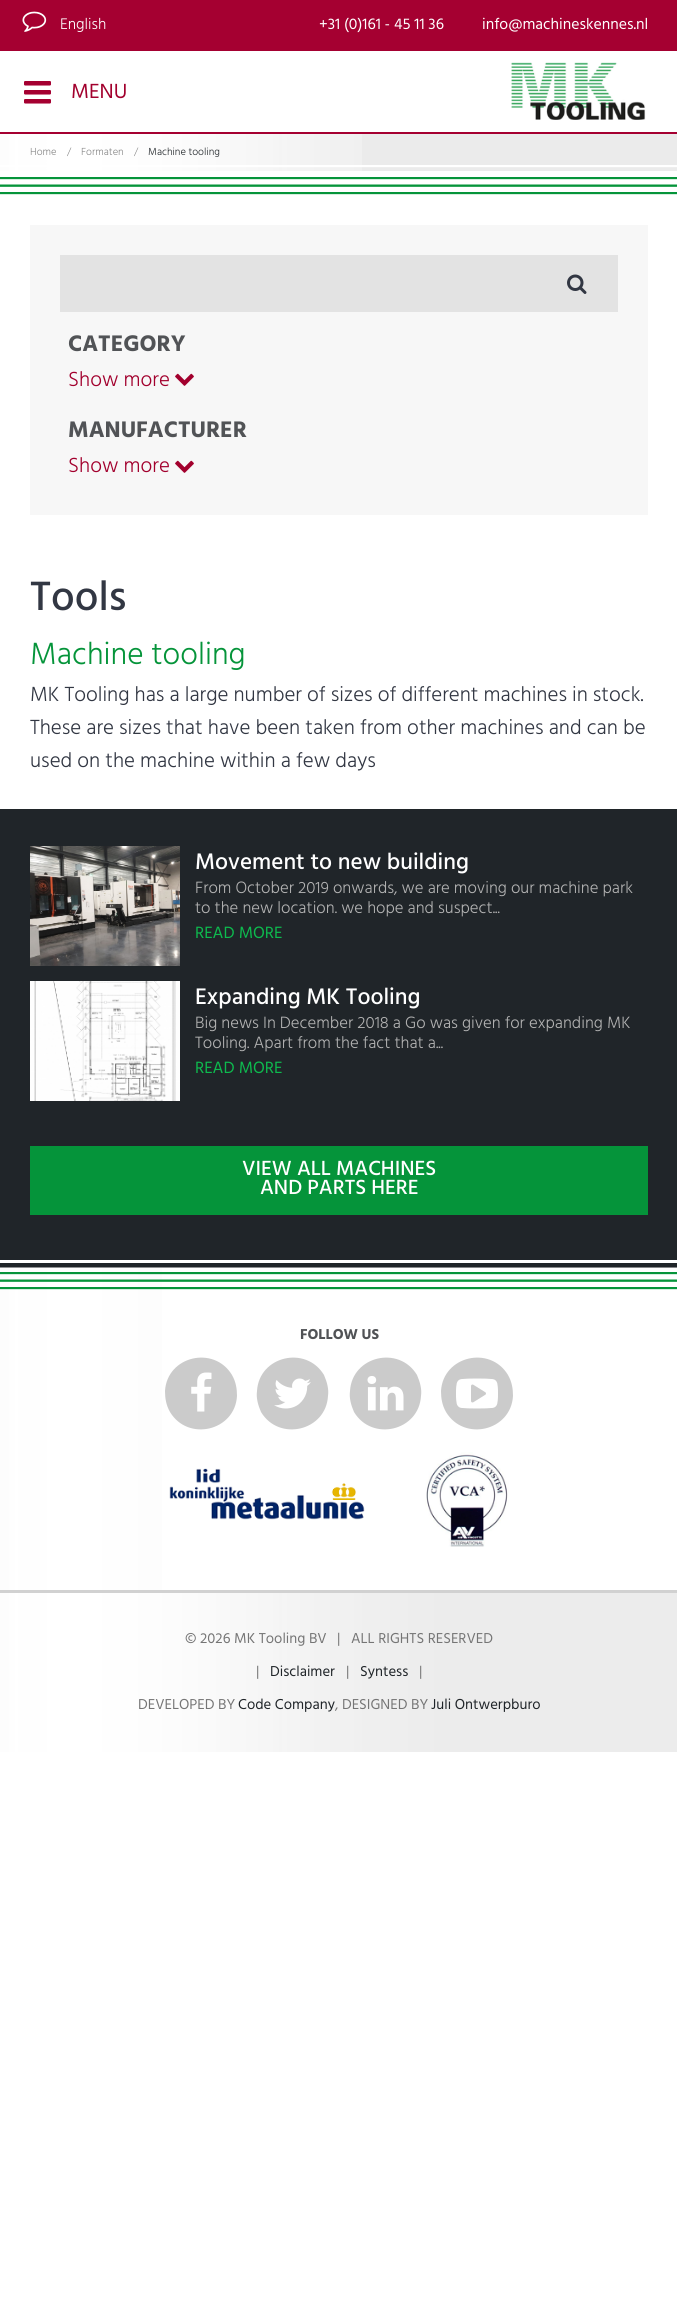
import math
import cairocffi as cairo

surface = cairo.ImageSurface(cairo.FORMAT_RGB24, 677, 2306)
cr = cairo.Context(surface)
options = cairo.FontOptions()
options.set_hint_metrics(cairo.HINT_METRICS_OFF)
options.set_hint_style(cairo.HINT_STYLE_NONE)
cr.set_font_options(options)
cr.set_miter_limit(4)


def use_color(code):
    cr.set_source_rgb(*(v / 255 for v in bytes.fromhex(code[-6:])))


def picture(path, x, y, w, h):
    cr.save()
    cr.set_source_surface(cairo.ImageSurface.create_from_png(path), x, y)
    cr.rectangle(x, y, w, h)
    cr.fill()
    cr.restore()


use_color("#ffffff")
cr.paint()
use_color("#a50031")
cr.rectangle(0, 132, 677, 2)
cr.fill()
cr.rectangle(0, 0, 677, 51)
cr.fill()
picture("img1.png", 22, 11, 25, 21)
cr.select_font_face("Hind Light")
cr.set_font_size(15.75)
use_color("#ffffff")
cr.move_to(60, 29)
cr.show_text("English")
cr.select_font_face("Hind")
cr.move_to(319, 29)
cr.show_text("+31 (0)161 - 45 11 36")
cr.move_to(482, 29)
cr.show_text("info@machineskennes.nl")
picture("img2.png", 24, 81, 27, 23)
cr.set_font_size(21)
use_color("#a2002d")
cr.move_to(71, 98)
cr.show_text("MENU")
picture("img3.png", 511, 62, 135, 58)
use_color("#ebebeb")
cr.rectangle(362, 134, 315, 37)
cr.fill()
picture("img4.png", 0, 134, 362, 37)
cr.select_font_face("Hind Light")
cr.set_font_size(10.5)
use_color("#868686")
cr.move_to(30, 155)
cr.show_text("Home")
cr.move_to(67, 155)
cr.show_text("/")
cr.move_to(81, 155)
cr.show_text("Formaten")
cr.move_to(134, 155)
cr.show_text("/")
use_color("#202529")
cr.move_to(148, 155)
cr.show_text("Machine tooling")
picture("img5.png", 0, 165, 677, 30)
use_color("#f7f7f7")
cr.rectangle(30, 225, 618, 290)
cr.fill()
use_color("#e3e3e3")
cr.rectangle(60, 255, 558, 57)
cr.fill()
picture("img6.png", 567, 274, 20, 20)
cr.select_font_face("Hind", cairo.FONT_SLANT_NORMAL, cairo.FONT_WEIGHT_BOLD)
cr.set_font_size(23.1)
use_color("#515356")
cr.move_to(68, 351)
cr.show_text("CATEGORY")
cr.select_font_face("Hind Light")
cr.set_font_size(21)
use_color("#a2002d")
cr.move_to(68, 386)
cr.show_text("Show more")
picture("img7.png", 175, 373, 19, 13)
cr.select_font_face("Hind", cairo.FONT_SLANT_NORMAL, cairo.FONT_WEIGHT_BOLD)
cr.set_font_size(23.1)
use_color("#515356")
cr.move_to(68, 437)
cr.show_text("MANUFACTURER")
cr.select_font_face("Hind Light")
cr.set_font_size(21)
use_color("#a2002d")
cr.move_to(68, 472)
cr.show_text("Show more")
picture("img7.png", 175, 460, 19, 13)
cr.select_font_face("Hind Medium")
cr.set_font_size(42)
use_color("#323743")
cr.move_to(30, 610)
cr.show_text("Tools")
cr.select_font_face("Hind Light")
cr.set_font_size(31.5)
use_color("#05943a")
cr.move_to(30, 664)
cr.show_text("Machine tooling")
cr.set_font_size(21)
use_color("#323743")
cr.move_to(30, 701)
cr.show_text("MK Tooling has a large number of sizes of different machines in stock.")
cr.move_to(30, 734)
cr.show_text("These are sizes that have been taken from other machines and can be")
cr.move_to(30, 767)
cr.show_text("used on the machine within a few days")
use_color("#202529")
cr.rectangle(0, 809, 677, 459)
cr.fill()
use_color("#ffffff")
cr.rectangle(0, 1260, 677, 3)
cr.fill()
picture("img8.png", 30, 846, 150, 120)
cr.select_font_face("Hind Medium")
cr.set_font_size(23.1)
cr.move_to(195, 869)
cr.show_text("Movement to new building")
cr.select_font_face("Hind Light")
cr.set_font_size(16.8)
use_color("#b2b2b2")
cr.move_to(195, 893)
cr.show_text("From October 2019 onwards, we are moving our machine park")
cr.move_to(195, 913)
cr.show_text("to the new location. we hope and suspect...")
cr.select_font_face("Hind")
use_color("#0dbb4e")
cr.move_to(195, 938)
cr.show_text("READ MORE")
picture("img9.png", 30, 981, 150, 120)
cr.select_font_face("Hind Medium")
cr.set_font_size(23.1)
use_color("#ffffff")
cr.move_to(195, 1004)
cr.show_text("Expanding MK Tooling")
cr.select_font_face("Hind Light")
cr.set_font_size(16.8)
use_color("#b2b2b2")
cr.move_to(195, 1028)
cr.show_text("Big news In December 2018 a Go was given for expanding MK")
cr.move_to(195, 1048)
cr.show_text("Tooling. Apart from the fact that a...")
cr.select_font_face("Hind")
use_color("#0dbb4e")
cr.move_to(195, 1073)
cr.show_text("READ MORE")
use_color("#05943a")
cr.rectangle(30, 1146, 618, 69)
cr.fill()
cr.select_font_face("Hind Medium")
cr.set_font_size(21)
use_color("#ffffff")
cr.move_to(242, 1175)
cr.show_text("VIEW ALL MACHINES")
cr.move_to(260, 1194)
cr.show_text("AND PARTS HERE")
picture("img10.png", 0, 1267, 677, 485)
cr.rectangle(162, 1268, 515, 322)
cr.fill()
picture("img11.png", 0, 1272, 677, 18)
cr.select_font_face("Hind", cairo.FONT_SLANT_NORMAL, cairo.FONT_WEIGHT_BOLD)
cr.set_font_size(14.75)
use_color("#515356")
cr.move_to(300, 1339)
cr.show_text("FOLLOW US")
use_color("#cbcbcb")
cr.new_path()
cr.move_to(232, 1375)
cr.curve_to(236, 1382, 237, 1389, 237, 1396)
cr.curve_to(235, 1431, 188, 1442, 170, 1412)
cr.curve_to(166, 1405, 165, 1398, 165, 1391)
cr.curve_to(167, 1356, 214, 1345, 232, 1375)
cr.close_path()
cr.fill()
picture("img12.png", 191, 1372, 21, 40)
cr.new_path()
cr.move_to(324, 1375)
cr.curve_to(327, 1382, 329, 1389, 328, 1396)
cr.curve_to(326, 1431, 279, 1442, 261, 1412)
cr.curve_to(258, 1405, 256, 1398, 257, 1391)
cr.curve_to(259, 1356, 306, 1345, 324, 1375)
cr.close_path()
cr.fill()
picture("img13.png", 274, 1378, 37, 31)
cr.new_path()
cr.move_to(417, 1375)
cr.curve_to(420, 1382, 422, 1389, 421, 1396)
cr.curve_to(419, 1431, 372, 1442, 354, 1412)
cr.curve_to(351, 1405, 349, 1398, 350, 1391)
cr.curve_to(352, 1356, 399, 1345, 417, 1375)
cr.close_path()
cr.fill()
picture("img14.png", 367, 1376, 37, 35)
cr.new_path()
cr.move_to(508, 1375)
cr.curve_to(512, 1382, 513, 1389, 513, 1396)
cr.curve_to(511, 1431, 464, 1442, 446, 1412)
cr.curve_to(442, 1405, 441, 1398, 441, 1391)
cr.curve_to(443, 1356, 490, 1345, 508, 1375)
cr.close_path()
cr.fill()
picture("img15.png", 456, 1378, 42, 31)
picture("img16.png", 169, 1452, 340, 95)
use_color("#d1d1d1")
cr.rectangle(0, 1590, 677, 3)
cr.fill()
cr.select_font_face("Hind")
use_color("#757575")
cr.move_to(185, 1643)
cr.show_text("© 2026 MK Tooling BV")
cr.move_to(337, 1643)
cr.show_text("|")
cr.move_to(351, 1643)
cr.show_text("ALL RIGHTS RESERVED")
cr.move_to(256, 1676)
cr.show_text("|")
use_color("#202529")
cr.move_to(270, 1676)
cr.show_text("Disclaimer")
use_color("#757575")
cr.move_to(346, 1676)
cr.show_text("|")
use_color("#202529")
cr.move_to(360, 1676)
cr.show_text("Syntess")
use_color("#757575")
cr.move_to(419, 1676)
cr.show_text("|")
cr.move_to(138, 1709)
cr.show_text("DEVELOPED BY")
use_color("#202529")
cr.move_to(238, 1709)
cr.show_text("Code Company")
use_color("#757575")
cr.move_to(335, 1709)
cr.show_text(", DESIGNED BY")
use_color("#202529")
cr.move_to(431, 1709)
cr.show_text("Juli Ontwerpburo")
surface.write_to_png("result.png")
